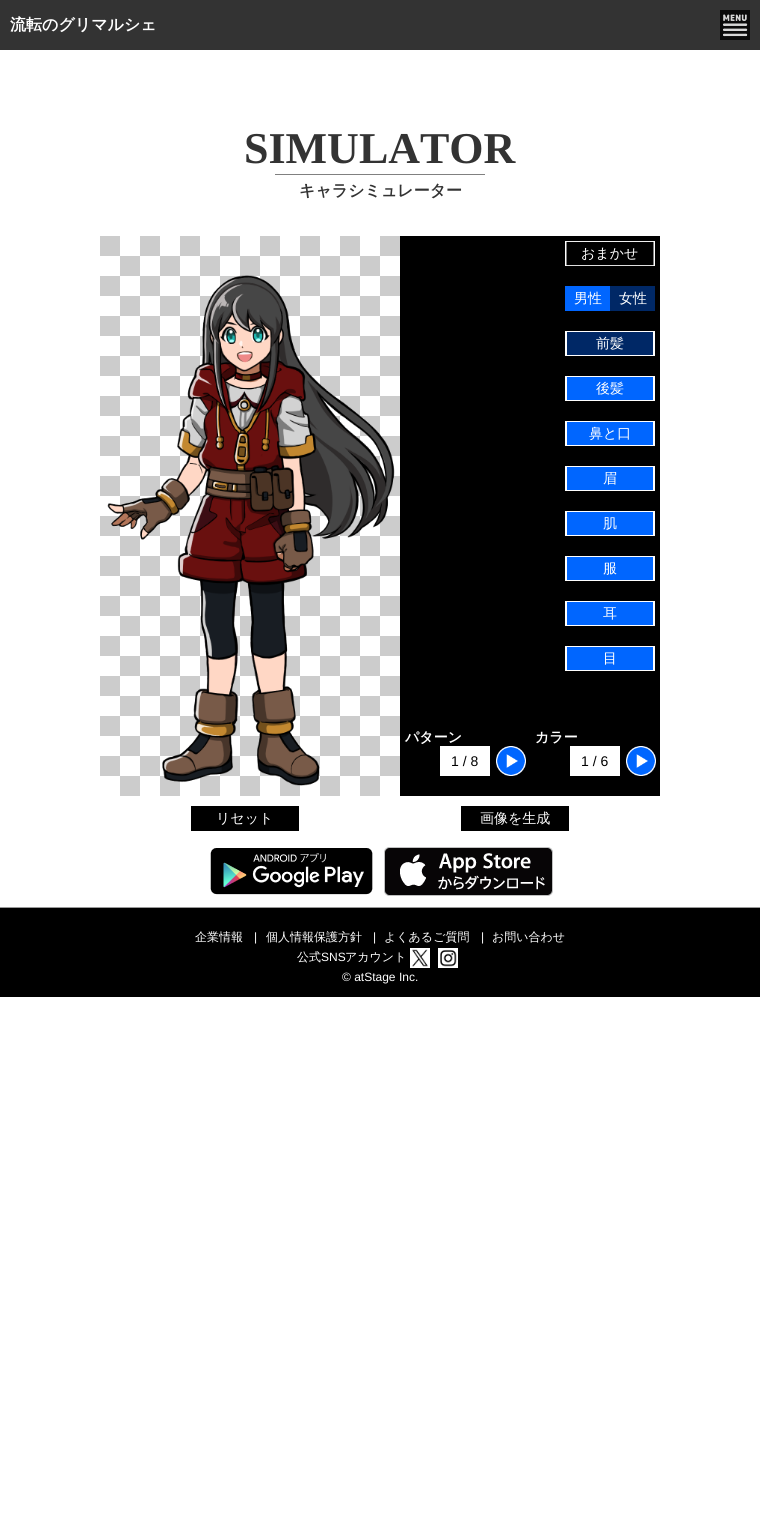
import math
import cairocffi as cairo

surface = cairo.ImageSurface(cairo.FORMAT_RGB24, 760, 1520)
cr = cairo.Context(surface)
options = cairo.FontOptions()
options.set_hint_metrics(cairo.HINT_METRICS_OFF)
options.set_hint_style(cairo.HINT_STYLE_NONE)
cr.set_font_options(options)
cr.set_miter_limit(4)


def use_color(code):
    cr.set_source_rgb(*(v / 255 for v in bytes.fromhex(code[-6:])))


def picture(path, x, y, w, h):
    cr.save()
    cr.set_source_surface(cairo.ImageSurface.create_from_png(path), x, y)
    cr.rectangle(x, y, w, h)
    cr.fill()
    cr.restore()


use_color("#ffffff")
cr.paint()
use_color("#333333")
cr.rectangle(0, 0, 760, 50)
cr.fill()
picture("img1.png", 720, 10, 30, 30)
cr.select_font_face("WenQuanYi Zen Hei", cairo.FONT_SLANT_NORMAL, cairo.FONT_WEIGHT_BOLD)
cr.set_font_size(16)
use_color("#ffffff")
cr.move_to(10, 30)
cr.show_text("流転のグリマルシェ")
cr.select_font_face("Liberation Serif", cairo.FONT_SLANT_NORMAL, cairo.FONT_WEIGHT_BOLD)
cr.set_font_size(44)
use_color("#333333")
cr.move_to(244, 163)
cr.show_text("SIMULATOR")
use_color("#808080")
cr.rectangle(275, 174, 210, 1)
cr.fill()
cr.select_font_face("WenQuanYi Zen Hei", cairo.FONT_SLANT_NORMAL, cairo.FONT_WEIGHT_BOLD)
cr.set_font_size(16)
use_color("#333333")
cr.move_to(299, 196)
cr.show_text("キャラシミュレーター")
use_color("#000000")
cr.rectangle(400, 236, 260, 560)
cr.fill()
picture("img2.png", 100, 236, 300, 560)
picture("img3.png", 201, 275, 194, 264)
picture("img8.png", 209, 327, 75, 22)
picture("img5.png", 107, 285, 212, 488)
picture("img9.png", 236, 340, 17, 23)
picture("img7.png", 220, 325, 50, 19)
picture("img6.png", 225, 321, 37, 5)
picture("img10.png", 121, 360, 199, 426)
picture("img4.png", 208, 282, 75, 133)
picture("img11.png", 565, 241, 90, 25)
cr.select_font_face("WenQuanYi Zen Hei Medium")
cr.set_font_size(14)
use_color("#ffffff")
cr.move_to(581, 258)
cr.show_text("おまかせ")
use_color("#0066ff")
cr.rectangle(565, 286, 45, 25)
cr.fill()
use_color("#ffffff")
cr.move_to(574, 303)
cr.show_text("男性")
use_color("#002866")
cr.rectangle(610, 286, 45, 25)
cr.fill()
use_color("#ffffff")
cr.move_to(619, 303)
cr.show_text("女性")
picture("img12.png", 565, 331, 90, 25)
cr.move_to(596, 348)
cr.show_text("前髪")
picture("img13.png", 565, 376, 90, 25)
cr.move_to(596, 393)
cr.show_text("後髪")
picture("img13.png", 565, 421, 90, 25)
cr.move_to(589, 438)
cr.show_text("鼻と口")
picture("img13.png", 565, 466, 90, 25)
cr.move_to(603, 483)
cr.show_text("眉")
picture("img13.png", 565, 511, 90, 25)
cr.move_to(603, 528)
cr.show_text("肌")
picture("img13.png", 565, 556, 90, 25)
cr.move_to(603, 573)
cr.show_text("服")
picture("img13.png", 565, 601, 90, 25)
cr.move_to(603, 618)
cr.show_text("耳")
picture("img13.png", 565, 646, 90, 25)
cr.move_to(603, 663)
cr.show_text("目")
cr.select_font_face("WenQuanYi Zen Hei", cairo.FONT_SLANT_NORMAL, cairo.FONT_WEIGHT_BOLD)
cr.move_to(405, 742)
cr.show_text("パターン")
cr.rectangle(440, 746, 50, 30)
cr.fill()
cr.select_font_face("Liberation Sans")
use_color("#000000")
cr.move_to(451, 766)
cr.show_text("1 / 8")
picture("img14.png", 496, 746, 30, 30)
picture("img15.png", 506, 754, 12, 14)
cr.select_font_face("WenQuanYi Zen Hei", cairo.FONT_SLANT_NORMAL, cairo.FONT_WEIGHT_BOLD)
use_color("#ffffff")
cr.move_to(535, 742)
cr.show_text("カラー")
cr.rectangle(570, 746, 50, 30)
cr.fill()
cr.select_font_face("Liberation Sans")
use_color("#000000")
cr.move_to(581, 766)
cr.show_text("1 / 6")
picture("img16.png", 626, 746, 30, 30)
picture("img17.png", 636, 754, 12, 14)
cr.rectangle(191, 806, 108, 25)
cr.fill()
cr.select_font_face("WenQuanYi Zen Hei Medium")
use_color("#ffffff")
cr.move_to(216, 823)
cr.show_text("リセット")
use_color("#000000")
cr.rectangle(461, 806, 108, 25)
cr.fill()
use_color("#ffffff")
cr.move_to(480, 823)
cr.show_text("画像を生成")
picture("img18.png", 210, 848, 163, 47)
picture("img19.png", 384, 847, 169, 49)
use_color("#000000")
cr.rectangle(0, 908, 760, 89)
cr.fill()
use_color("#999999")
cr.rectangle(0, 907, 760, 1)
cr.fill()
cr.set_font_size(12)
use_color("#ffffff")
cr.move_to(195, 941)
cr.show_text("企業情報")
cr.select_font_face("Liberation Sans")
cr.move_to(254, 941)
cr.show_text("|")
cr.select_font_face("WenQuanYi Zen Hei Medium")
cr.move_to(266, 941)
cr.show_text("個人情報保護方針")
cr.select_font_face("Liberation Sans")
cr.move_to(373, 941)
cr.show_text("|")
cr.select_font_face("WenQuanYi Zen Hei Medium")
cr.move_to(384, 941)
cr.show_text("よくあるご質問")
cr.select_font_face("Liberation Sans")
cr.move_to(481, 941)
cr.show_text("|")
cr.select_font_face("WenQuanYi Zen Hei Medium")
cr.move_to(492, 941)
cr.show_text("お問い合わせ")
cr.move_to(297, 961)
cr.show_text("公式")
cr.select_font_face("Liberation Sans")
cr.move_to(321, 961)
cr.show_text("SNS")
cr.select_font_face("WenQuanYi Zen Hei Medium")
cr.move_to(345, 961)
cr.show_text("アカウント")
picture("img20.png", 410, 948, 20, 20)
picture("img21.png", 438, 948, 20, 20)
cr.select_font_face("Liberation Sans")
cr.move_to(342, 981)
cr.show_text("© atStage Inc.")
surface.write_to_png("result.png")
